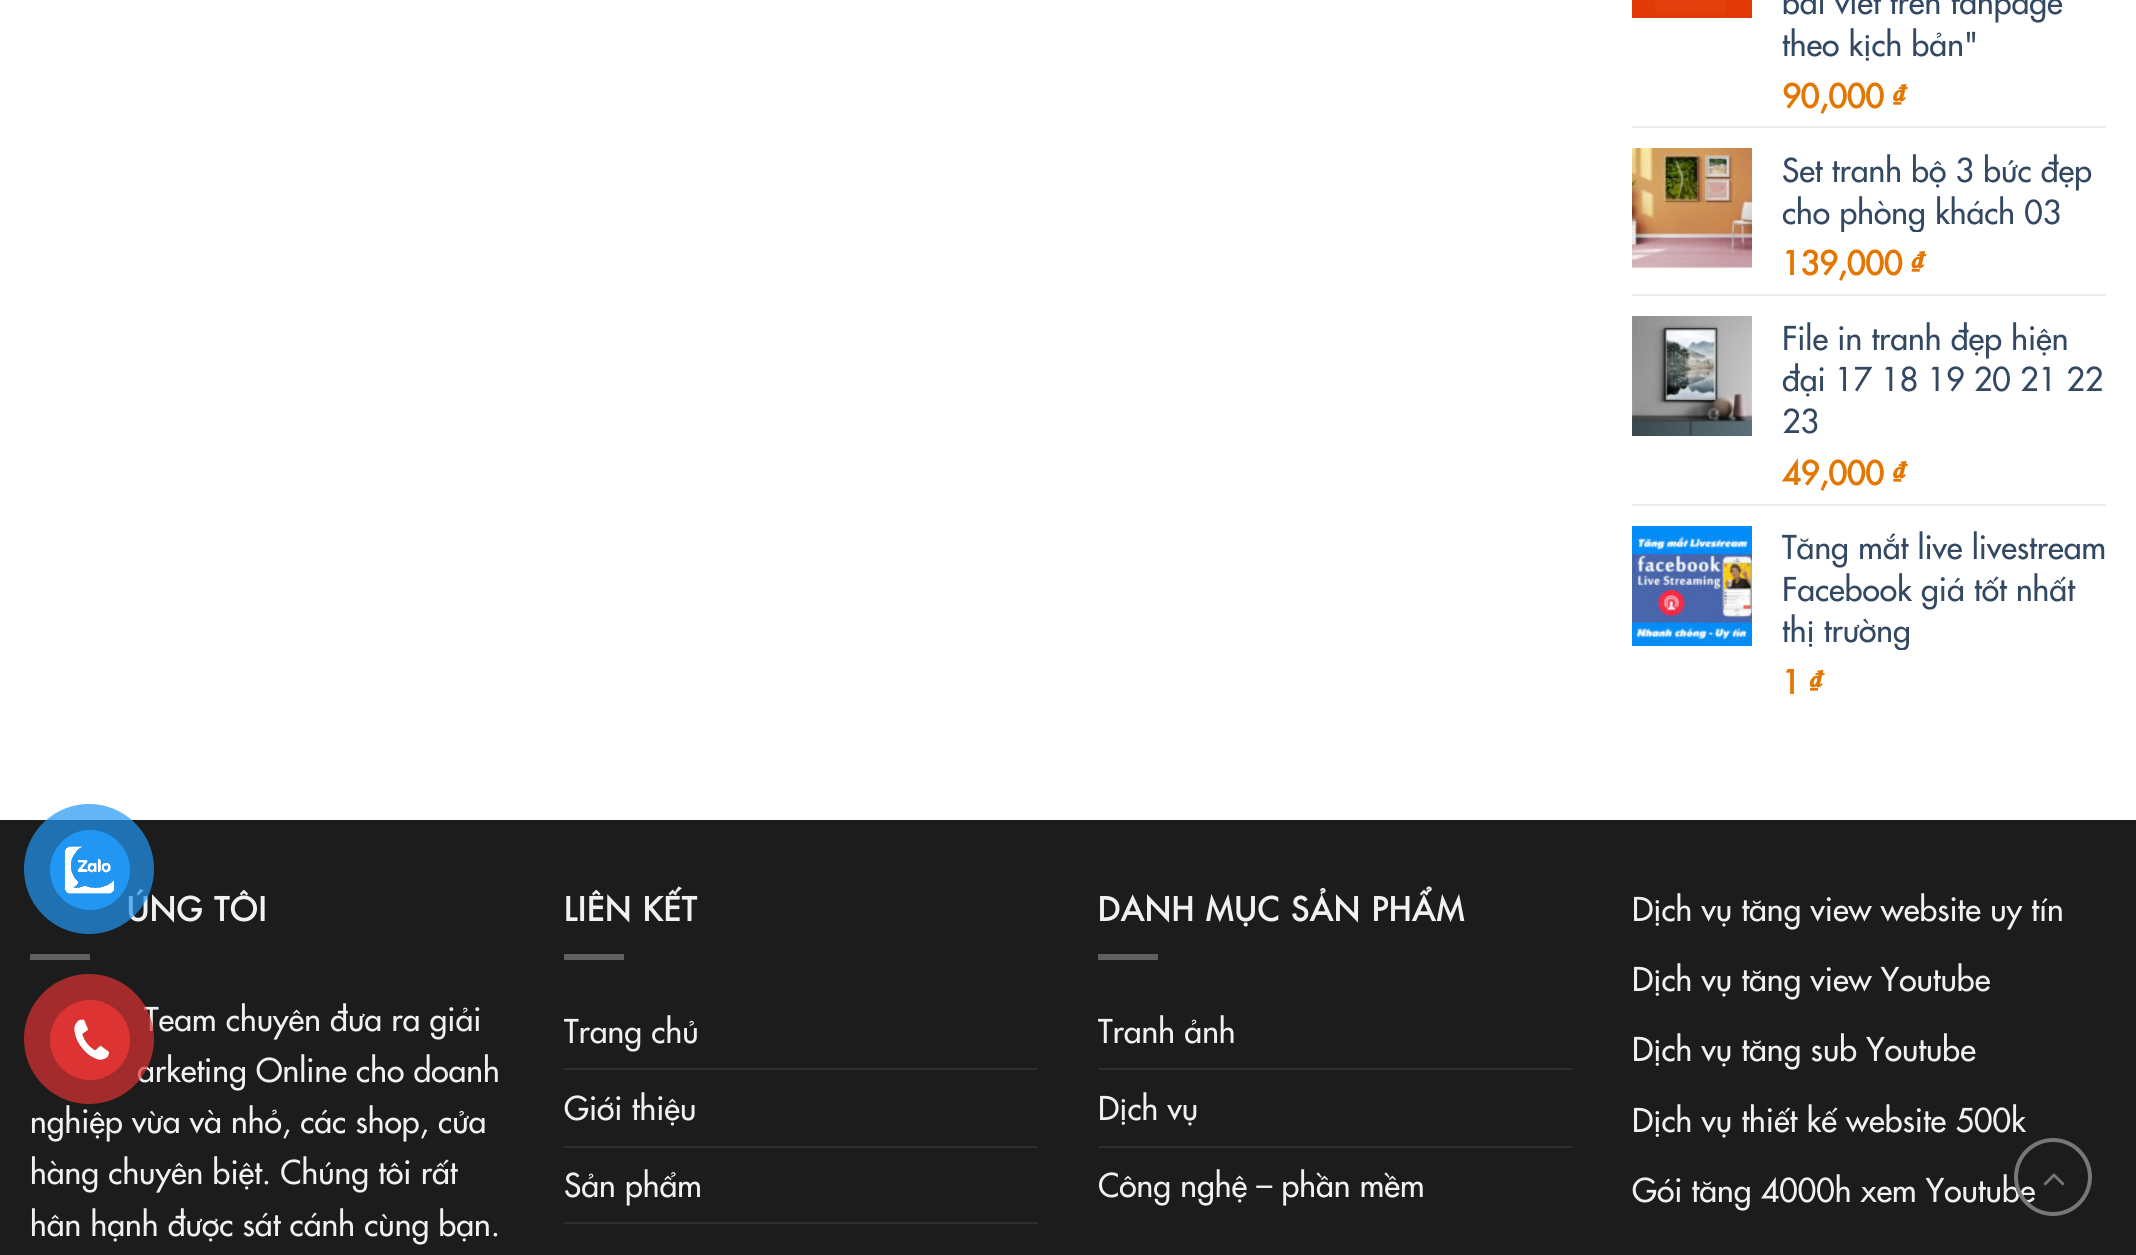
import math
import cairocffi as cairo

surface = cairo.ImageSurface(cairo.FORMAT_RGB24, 2136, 1255)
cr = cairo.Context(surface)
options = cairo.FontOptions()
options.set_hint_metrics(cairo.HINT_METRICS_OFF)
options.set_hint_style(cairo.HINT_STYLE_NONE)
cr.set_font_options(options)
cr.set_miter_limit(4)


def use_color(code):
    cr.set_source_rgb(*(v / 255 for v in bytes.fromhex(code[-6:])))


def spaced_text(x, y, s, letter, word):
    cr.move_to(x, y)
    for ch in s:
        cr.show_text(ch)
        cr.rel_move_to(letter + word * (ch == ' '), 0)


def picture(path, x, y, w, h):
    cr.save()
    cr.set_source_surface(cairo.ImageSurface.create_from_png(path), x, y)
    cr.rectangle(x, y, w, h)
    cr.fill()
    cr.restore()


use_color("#ffffff")
cr.paint()
picture("img1.png", 1632, 0, 120, 18)
cr.select_font_face("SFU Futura")
cr.set_font_size(32)
use_color("#334862")
cr.move_to(1782, 14)
cr.show_text("bài viết trên fanpage")
cr.move_to(1782, 56)
cr.show_text("theo kịch bản\"")
cr.select_font_face("SFU Futura", cairo.FONT_SLANT_NORMAL, cairo.FONT_WEIGHT_BOLD)
use_color("#e47702")
cr.move_to(1782, 108)
cr.show_text("90,000 ₫")
use_color("#ececec")
cr.rectangle(1632, 126, 474, 2)
cr.fill()
picture("img2.png", 1632, 148, 120, 120)
cr.select_font_face("SFU Futura")
use_color("#334862")
cr.move_to(1782, 182)
cr.show_text("Set tranh bộ 3 bức đẹp")
cr.save()
cr.rectangle(1782, 148, 324, 84)
cr.clip()
cr.move_to(1782, 224)
cr.show_text("cho phòng khách 03")
cr.restore()
cr.select_font_face("SFU Futura", cairo.FONT_SLANT_NORMAL, cairo.FONT_WEIGHT_BOLD)
use_color("#e47702")
cr.move_to(1782, 275)
cr.show_text("139,000 ₫")
use_color("#ececec")
cr.rectangle(1632, 294, 474, 2)
cr.fill()
picture("img3.png", 1632, 316, 120, 120)
cr.select_font_face("SFU Futura")
use_color("#334862")
cr.move_to(1782, 350)
cr.show_text("File in tranh đẹp hiện")
cr.move_to(1782, 391)
cr.show_text("đại 17 18 19 20 21 22")
cr.move_to(1782, 433)
cr.show_text("23")
cr.select_font_face("SFU Futura", cairo.FONT_SLANT_NORMAL, cairo.FONT_WEIGHT_BOLD)
use_color("#e47702")
cr.move_to(1782, 485)
cr.show_text("49,000 ₫")
use_color("#ececec")
cr.rectangle(1632, 504, 474, 2)
cr.fill()
picture("img4.png", 1632, 526, 120, 120)
cr.select_font_face("SFU Futura")
use_color("#334862")
cr.move_to(1782, 559)
cr.show_text("Tăng mắt live livestream")
cr.move_to(1782, 601)
cr.show_text("Facebook giá tốt nhất")
cr.save()
cr.rectangle(1782, 526, 324, 124)
cr.clip()
cr.move_to(1782, 642)
cr.show_text("thị trường")
cr.restore()
cr.select_font_face("SFU Futura", cairo.FONT_SLANT_NORMAL, cairo.FONT_WEIGHT_BOLD)
use_color("#e47702")
cr.move_to(1782, 694)
cr.show_text("1 ₫")
use_color("#1c1c1c")
cr.rectangle(0, 820, 2136, 435)
cr.fill()
use_color("#f1f1f1")
spaced_text(127, 921, "ÚNG TÔI", 1.6, 0)
use_color("#606060")
cr.rectangle(30, 954, 60, 6)
cr.fill()
cr.select_font_face("SFU Futura")
use_color("#f1f1f1")
cr.move_to(144, 1031)
cr.show_text("Team chuyên đưa ra giải")
cr.move_to(137, 1082)
cr.show_text("arketing Online cho doanh")
cr.move_to(30, 1133)
cr.show_text("nghiệp vừa và nhỏ, các shop, cửa")
cr.move_to(30, 1184)
cr.show_text("hàng chuyên biệt. Chúng tôi rất")
cr.move_to(30, 1236)
cr.show_text("hân hạnh được sát cánh cùng bạn.")
cr.select_font_face("SFU Futura", cairo.FONT_SLANT_NORMAL, cairo.FONT_WEIGHT_BOLD)
spaced_text(564, 921, "LIÊN KẾT", 1.6, 0)
use_color("#606060")
cr.rectangle(564, 954, 60, 6)
cr.fill()
cr.select_font_face("SFU Futura")
use_color("#f1f1f1")
cr.move_to(564, 1043)
cr.show_text("Trang chủ")
use_color("#2e2e2e")
cr.rectangle(564, 1068, 474, 2)
cr.fill()
use_color("#f1f1f1")
cr.move_to(564, 1120)
cr.show_text("Giới thiệu")
use_color("#2e2e2e")
cr.rectangle(564, 1146, 474, 2)
cr.fill()
use_color("#f1f1f1")
cr.move_to(564, 1197)
cr.show_text("Sản phẩm")
use_color("#2e2e2e")
cr.rectangle(564, 1222, 474, 2)
cr.fill()
cr.select_font_face("SFU Futura", cairo.FONT_SLANT_NORMAL, cairo.FONT_WEIGHT_BOLD)
use_color("#f1f1f1")
spaced_text(1098, 921, "DANH MỤC SẢN PHẨM", 1.6, 0)
use_color("#606060")
cr.rectangle(1098, 954, 60, 6)
cr.fill()
cr.select_font_face("SFU Futura")
use_color("#f1f1f1")
cr.move_to(1098, 1043)
cr.show_text("Tranh ảnh")
use_color("#2e2e2e")
cr.rectangle(1098, 1068, 474, 2)
cr.fill()
use_color("#f1f1f1")
cr.move_to(1098, 1120)
cr.show_text("Dịch vụ")
use_color("#2e2e2e")
cr.rectangle(1098, 1146, 474, 2)
cr.fill()
use_color("#f1f1f1")
cr.move_to(1098, 1197)
cr.show_text("Công nghệ – phần mềm")
cr.move_to(1632, 921)
cr.show_text("Dịch vụ tăng view website uy tín")
cr.move_to(1632, 991)
cr.show_text("Dịch vụ tăng view Youtube")
cr.move_to(1632, 1061)
cr.show_text("Dịch vụ tăng sub Youtube")
cr.move_to(1632, 1132)
cr.show_text("Dịch vụ thiết kế website 500k")
cr.move_to(1632, 1202)
cr.show_text("Gói tăng 4000h xem Youtube")
cr.new_path()
cr.arc(2053, 1177, 37, 0, 2 * math.pi)
use_color("#777777")
cr.set_line_width(4)
cr.stroke()
picture("img5.png", 2043, 1173, 22, 13)
cr.set_source_rgba(0.129, 0.588, 0.953, 0.7)
cr.arc(89, 869, 65, 0, 2 * math.pi)
cr.fill()
use_color("#2196f3")
cr.arc(90, 870, 40, 0, 2 * math.pi)
cr.fill()
picture("img6.png", 64, 846, 50, 48)
cr.set_source_rgba(0.867, 0.2, 0.2, 0.7)
cr.arc(89, 1039, 65, 0, 2 * math.pi)
cr.fill()
use_color("#dd3333")
cr.arc(90, 1040, 40, 0, 2 * math.pi)
cr.fill()
picture("img7.png", 74, 1019, 35, 41)
surface.write_to_png("result.png")
